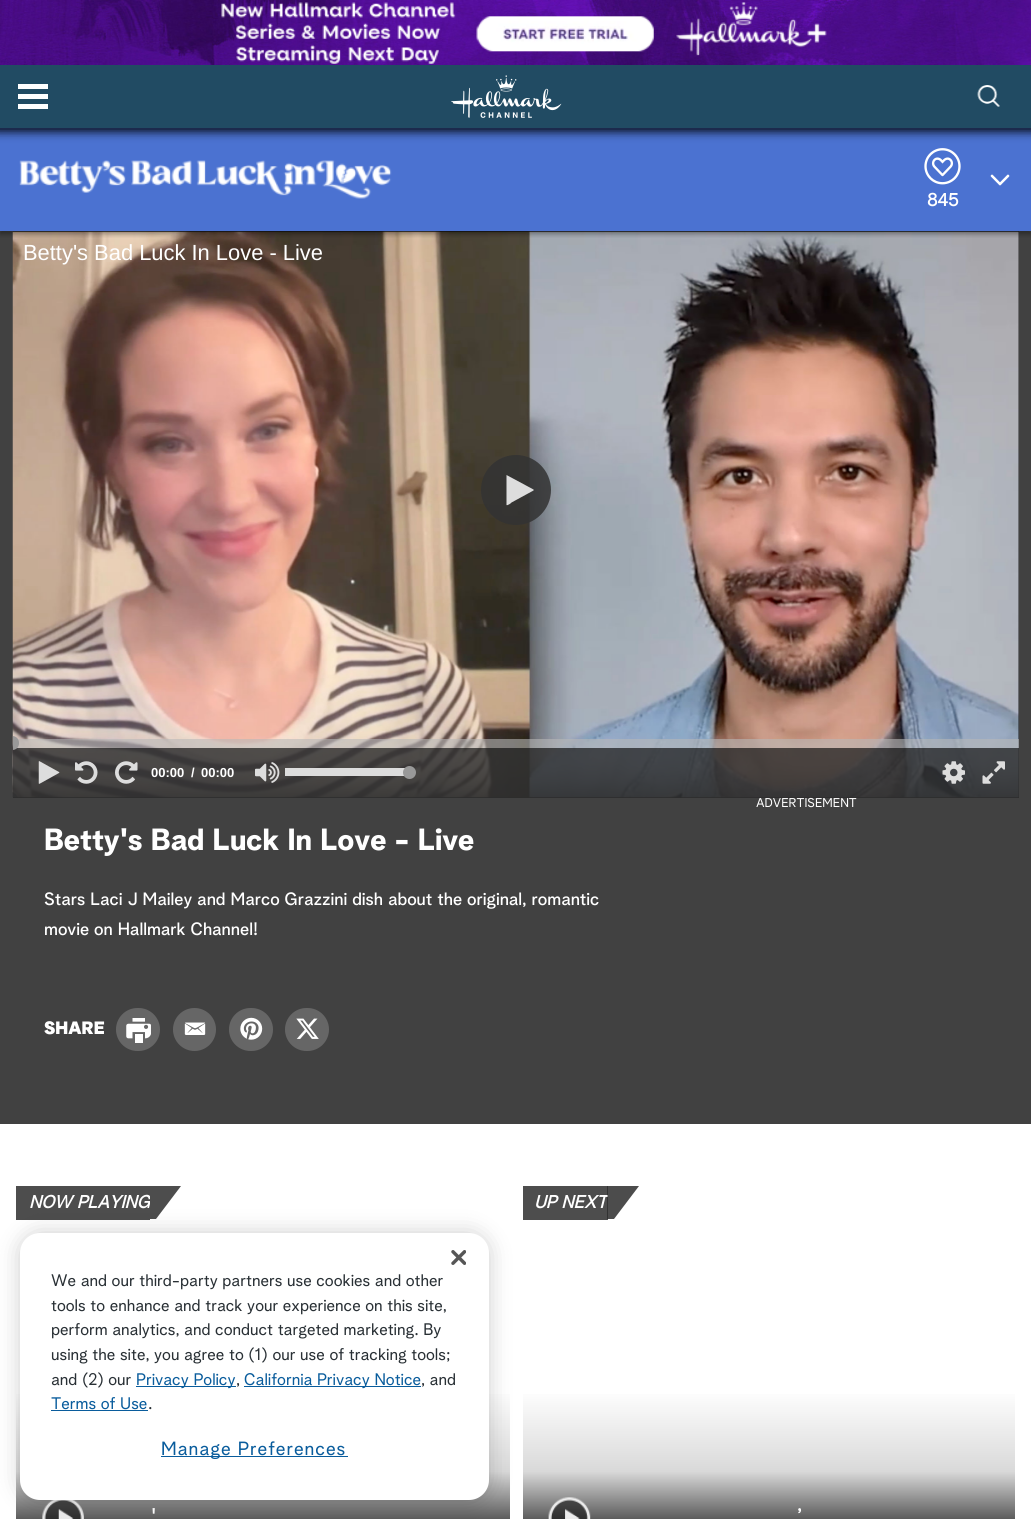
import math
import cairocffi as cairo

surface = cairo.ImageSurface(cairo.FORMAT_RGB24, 1031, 1519)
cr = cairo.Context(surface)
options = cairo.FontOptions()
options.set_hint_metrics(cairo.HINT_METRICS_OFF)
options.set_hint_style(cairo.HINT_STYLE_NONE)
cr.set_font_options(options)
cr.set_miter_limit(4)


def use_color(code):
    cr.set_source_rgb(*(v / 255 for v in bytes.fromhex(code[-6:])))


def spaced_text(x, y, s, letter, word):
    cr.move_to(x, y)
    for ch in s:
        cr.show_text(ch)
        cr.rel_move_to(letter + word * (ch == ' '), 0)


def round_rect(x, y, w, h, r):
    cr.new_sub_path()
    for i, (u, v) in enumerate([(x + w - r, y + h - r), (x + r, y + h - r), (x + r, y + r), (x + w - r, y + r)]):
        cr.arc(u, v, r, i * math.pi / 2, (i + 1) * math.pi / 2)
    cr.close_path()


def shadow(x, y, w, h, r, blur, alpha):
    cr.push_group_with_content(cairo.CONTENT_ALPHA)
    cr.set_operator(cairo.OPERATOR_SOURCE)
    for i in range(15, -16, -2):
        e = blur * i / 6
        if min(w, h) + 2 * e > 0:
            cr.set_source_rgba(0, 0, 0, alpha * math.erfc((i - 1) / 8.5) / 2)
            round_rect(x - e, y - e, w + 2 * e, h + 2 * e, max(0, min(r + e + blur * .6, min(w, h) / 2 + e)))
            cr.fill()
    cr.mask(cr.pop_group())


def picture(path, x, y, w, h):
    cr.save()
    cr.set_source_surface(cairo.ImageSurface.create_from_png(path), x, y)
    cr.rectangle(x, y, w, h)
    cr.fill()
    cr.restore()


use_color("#ffffff")
cr.paint()
picture("img1.png", 0, 0, 1031, 65)
picture("img2.png", 221, 2, 606, 62)
use_color("#4b72d1")
cr.rectangle(0, 128, 1031, 103)
cr.fill()
use_color("#000000")
shadow(-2, 126, 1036, 5, 0, 5, 1)
use_color("#414141")
cr.rectangle(0, 231, 1031, 893)
cr.fill()
gradient = cairo.LinearGradient(516, 231, 516, 798)
gradient.add_color_stop_rgba(0, 0.129, 0.129, 0.129, 1)
gradient.add_color_stop_rgba(1, 0.035, 0.035, 0.035, 1)
cr.set_source(gradient)
cr.rectangle(13, 231, 1006, 567)
cr.fill()
picture("img8.png", 12, 231, 1007, 567)
cr.save()
cr.rectangle(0, 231, 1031, 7)
cr.clip()
use_color("#000000")
shadow(0, 130, 1031, 104, 0, 2.5, 0.37)
cr.restore()
use_color("#214b63")
cr.rectangle(0, 65, 1031, 63)
cr.fill()
use_color("#ffffff")
cr.rectangle(18, 94, 30, 5)
cr.fill()
cr.rectangle(18, 84, 30, 5)
cr.fill()
cr.rectangle(18, 104, 30, 5)
cr.fill()
picture("img3.png", 451, 75, 111, 43)
picture("img4.png", 977, 85, 23, 22)
picture("img5.png", 19, 160, 373, 39)
picture("img6.png", 990, 174, 20, 12)
picture("img7.png", 924, 148, 37, 37)
cr.select_font_face("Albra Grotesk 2", cairo.FONT_SLANT_NORMAL, cairo.FONT_WEIGHT_BOLD)
cr.set_font_size(17.5)
cr.move_to(927, 206)
cr.show_text("845")
cr.select_font_face("Liberation Sans")
cr.set_font_size(21.9)
cr.move_to(23, 260)
cr.show_text("Betty's Bad Luck In Love - Live")
cr.set_source_rgba(0.2, 0.2, 0.2, 0.85)
cr.new_path()
cr.arc(516, 490, 35, 0, 2 * math.pi)
cr.fill()
use_color("#dddddd")
cr.new_path()
cr.move_to(533.5, 490.5)
cr.line_to(511.5, 502.5)
cr.curve_to(511.5, 503, 507, 506, 506.5, 505)
cr.line_to(506.5, 475.5)
cr.line_to(506.5, 475)
cr.line_to(533.5, 489.5)
cr.curve_to(534, 490, 533.5, 490.5, 533.5, 490.5)
cr.close_path()
cr.fill()
cr.set_source_rgba(0.722, 0.722, 0.722, 0.59)
cr.rectangle(17, 739, 1002, 9)
cr.fill()
cr.set_source_rgba(0.2, 0.2, 0.2, 0.85)
cr.rectangle(13, 748, 1006, 50)
cr.fill()
use_color("#999999")
cr.new_path()
cr.move_to(13, 736)
cr.line_to(12.5, 736)
cr.curve_to(16, 736, 19, 739, 19, 742.5)
cr.line_to(19, 743.5)
cr.curve_to(19, 747, 16, 750, 12.5, 750)
cr.line_to(13, 750)
cr.close_path()
cr.fill()
picture("img9.png", 38, 761, 22, 23)
picture("img10.png", 75, 761, 23, 23)
picture("img11.png", 115, 761, 23, 23)
cr.select_font_face("Liberation Sans", cairo.FONT_SLANT_NORMAL, cairo.FONT_WEIGHT_BOLD)
cr.set_font_size(13)
use_color("#ffffff")
cr.move_to(151, 777)
cr.show_text("00:00")
cr.move_to(191, 777)
cr.show_text("/")
cr.move_to(201, 777)
cr.show_text("00:00")
picture("img12.png", 255, 762, 25, 21)
use_color("#dddddd")
cr.rectangle(285, 768, 125, 8)
cr.fill()
use_color("#999999")
cr.arc(409.5, 772.5, 6.5, 0, 2 * math.pi)
cr.fill()
picture("img13.png", 942, 761, 23, 23)
picture("img14.png", 982, 761, 23, 23)
cr.select_font_face("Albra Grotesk")
cr.set_font_size(12.5)
use_color("#ffffff")
cr.move_to(756, 807)
cr.show_text("ADVERTISEMENT")
cr.select_font_face("Albra Grotesk", cairo.FONT_SLANT_NORMAL, cairo.FONT_WEIGHT_BOLD)
cr.set_font_size(30)
cr.move_to(44, 850)
cr.show_text("Betty's Bad Luck In Love - Live")
cr.select_font_face("Albra Grotesk Medium")
cr.set_font_size(17.5)
cr.move_to(44, 905)
cr.show_text("Stars Laci J Mailey and Marco Grazzini dish about the original, romantic")
cr.move_to(44, 935)
cr.show_text("movie on Hallmark Channel!")
cr.select_font_face("Albra Grotesk Black")
cr.move_to(44, 1034)
cr.show_text("SHARE")
use_color("#666666")
round_rect(116, 1008, 44, 43, 21.5)
cr.fill()
picture("img15.png", 126, 1018, 25, 25)
cr.arc(194.5, 1029.5, 21.5, 0, 2 * math.pi)
cr.fill()
picture("img16.png", 184, 1022, 22, 13)
round_rect(229, 1008, 44, 43, 21.5)
cr.fill()
picture("img17.png", 240, 1017, 23, 23)
round_rect(285, 1008, 44, 43, 21.5)
cr.fill()
picture("img18.png", 296, 1018, 23, 21)
use_color("#4d4d4d")
cr.rectangle(16, 1186, 134, 34)
cr.fill()
cr.select_font_face("Albra Grotesk", cairo.FONT_SLANT_ITALIC, cairo.FONT_WEIGHT_BOLD)
use_color("#ffffff")
cr.move_to(29, 1208)
cr.show_text("NOW PLAYING")
use_color("#4d4d4d")
cr.new_path()
cr.move_to(150, 1186)
cr.line_to(181, 1186)
cr.line_to(156, 1219)
cr.line_to(150, 1219)
cr.close_path()
cr.fill()
gradient = cairo.LinearGradient(263, 1389, 263, 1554)
gradient.add_color_stop_rgba(0, 1, 1, 1, 1)
gradient.add_color_stop_rgba(0.5, 0.851, 0.851, 0.851, 1)
gradient.add_color_stop_rgba(1, 0, 0, 0, 1)
cr.set_source(gradient)
cr.rectangle(16, 1394, 494, 125)
cr.fill()
picture("img19.png", 42, 1500, 42, 19)
cr.select_font_face("Albra Grotesk Medium")
cr.set_font_size(22)
use_color("#ffffff")
cr.move_to(151, 1524)
cr.show_text("'")
use_color("#4d4d4d")
cr.rectangle(523, 1186, 85, 34)
cr.fill()
cr.select_font_face("Albra Grotesk", cairo.FONT_SLANT_ITALIC, cairo.FONT_WEIGHT_BOLD)
cr.set_font_size(17.5)
use_color("#ffffff")
cr.move_to(534, 1208)
cr.show_text("UP NEXT")
cr.set_source_rgba(0, 0, 0, 0.7)
cr.new_path()
cr.move_to(607.5, 1186)
cr.line_to(639, 1186)
cr.line_to(614, 1219)
cr.line_to(607.5, 1219)
cr.close_path()
cr.fill()
gradient = cairo.LinearGradient(769, 1389, 769, 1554)
gradient.add_color_stop_rgba(0, 1, 1, 1, 1)
gradient.add_color_stop_rgba(0.5, 0.851, 0.851, 0.851, 1)
gradient.add_color_stop_rgba(1, 0, 0, 0, 1)
cr.set_source(gradient)
cr.rectangle(523, 1394, 492, 125)
cr.fill()
picture("img20.png", 548, 1497, 43, 22)
cr.select_font_face("Albra Grotesk Medium")
cr.set_font_size(22)
use_color("#ffffff")
cr.move_to(797, 1524)
cr.show_text("’")
use_color("#000000")
shadow(20, 1233, 469, 267, 20, 11, 0.2)
use_color("#ffffff")
round_rect(20, 1233, 469, 267, 20)
cr.fill()
picture("img21.png", 451, 1250, 15, 15)
cr.select_font_face("Albra Grotesk")
cr.set_font_size(16.4)
use_color("#293035")
cr.move_to(51, 1286)
cr.show_text("We and our third-party partners use cookies and other")
cr.move_to(51, 1311)
cr.show_text("tools to enhance and track your experience on this site,")
cr.move_to(51, 1335)
cr.show_text("perform analytics, and conduct targeted marketing. By")
cr.move_to(51, 1360)
cr.show_text("using the site, you agree to (1) our use of tracking tools;")
cr.move_to(51, 1385)
cr.show_text("and (2) our")
use_color("#095c9c")
cr.rectangle(136, 1386, 100, 1)
cr.fill()
cr.move_to(136, 1385)
cr.show_text("Privacy Policy")
use_color("#293035")
cr.move_to(236, 1385)
cr.show_text(",")
use_color("#095c9c")
cr.rectangle(244, 1386, 177, 1)
cr.fill()
cr.move_to(244, 1385)
cr.show_text("California Privacy Notice")
use_color("#293035")
cr.move_to(421, 1385)
cr.show_text(", and")
use_color("#095c9c")
cr.move_to(51, 1409)
cr.show_text("Terms of Use")
cr.rectangle(51, 1410, 97, 1)
cr.fill()
use_color("#293035")
cr.move_to(148, 1409)
cr.show_text(".")
use_color("#095c9c")
cr.rectangle(161, 1456, 187, 1)
cr.fill()
cr.set_font_size(18.75)
spaced_text(161, 1455, "Manage Preferences", 0.9, 0)
surface.write_to_png("result.png")
